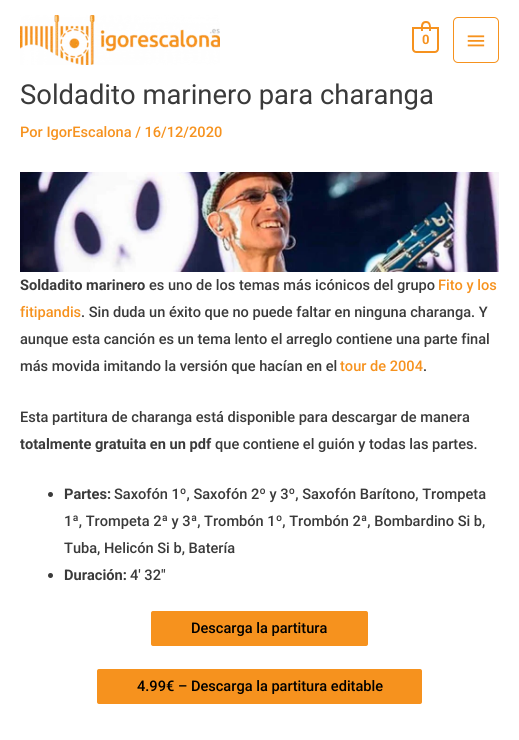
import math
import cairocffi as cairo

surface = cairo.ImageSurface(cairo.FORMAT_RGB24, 519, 740)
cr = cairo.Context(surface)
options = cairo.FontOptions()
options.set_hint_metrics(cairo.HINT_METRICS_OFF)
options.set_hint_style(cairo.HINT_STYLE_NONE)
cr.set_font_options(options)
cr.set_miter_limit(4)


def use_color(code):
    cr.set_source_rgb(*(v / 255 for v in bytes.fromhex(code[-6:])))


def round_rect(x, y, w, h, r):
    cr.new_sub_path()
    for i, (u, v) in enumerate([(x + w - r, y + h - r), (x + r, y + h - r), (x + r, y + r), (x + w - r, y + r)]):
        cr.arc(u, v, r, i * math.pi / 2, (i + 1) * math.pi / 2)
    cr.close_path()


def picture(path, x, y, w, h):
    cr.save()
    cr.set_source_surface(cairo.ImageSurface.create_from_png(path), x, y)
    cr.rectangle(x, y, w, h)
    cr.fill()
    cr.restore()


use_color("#ffffff")
cr.paint()
picture("img1.png", 20, 15, 200, 50)
cr.new_path()
cr.move_to(413, 28)
cr.line_to(438, 28)
cr.line_to(438, 49)
cr.curve_to(438, 50.5, 436.5, 52, 435, 52)
cr.line_to(416, 52)
cr.curve_to(414.5, 52, 413, 50.5, 413, 49)
cr.close_path()
use_color("#f6921e")
cr.stroke()
cr.set_fill_rule(cairo.FILL_RULE_EVEN_ODD)
cr.new_path()
cr.move_to(426, 21)
cr.curve_to(431.5, 21, 431, 27, 431, 31)
cr.line_to(421, 31)
cr.curve_to(421, 27, 420, 21, 426, 21)
cr.close_path()
cr.move_to(426, 23)
cr.curve_to(430, 23, 429, 28.5, 429, 31)
cr.line_to(423, 31)
cr.curve_to(423, 28.5, 422, 23, 426, 23)
cr.close_path()
cr.fill()
cr.select_font_face("Roboto", cairo.FONT_SLANT_NORMAL, cairo.FONT_WEIGHT_BOLD)
cr.set_font_size(13)
cr.move_to(422, 44)
cr.show_text("0")
round_rect(453.5, 17.5, 45, 45, 4.5)
cr.set_line_width(1)
cr.stroke()
picture("img2.png", 467, 35, 18, 12)
cr.select_font_face("Roboto")
cr.set_font_size(27.4)
use_color("#3a3a3a")
cr.move_to(20, 104)
cr.show_text("Soldadito marinero para charanga")
cr.select_font_face("Roboto Medium")
cr.set_font_size(14.6)
use_color("#f6921e")
cr.move_to(20, 137)
cr.show_text("Por IgorEscalona / 16/12/2020")
picture("img3.png", 20, 172, 479, 100)
cr.select_font_face("Roboto", cairo.FONT_SLANT_NORMAL, cairo.FONT_WEIGHT_BOLD)
use_color("#3a3a3a")
cr.move_to(20, 290)
cr.show_text("Soldadito marinero")
cr.select_font_face("Roboto Medium")
cr.move_to(149, 290)
cr.show_text("es uno de los temas más icónicos del grupo")
use_color("#f6921e")
cr.move_to(438, 290)
cr.show_text("Fito y los")
cr.move_to(20, 317)
cr.show_text("fitipandis")
use_color("#3a3a3a")
cr.move_to(81, 317)
cr.show_text(". Sin duda un éxito que no puede faltar en ninguna charanga. Y")
cr.move_to(20, 344)
cr.show_text("aunque esta canción es un tema lento el arreglo contiene una parte final")
cr.move_to(20, 371)
cr.show_text("más movida imitando la versión que hacían en el")
use_color("#f6921e")
cr.move_to(340, 371)
cr.show_text("tour de 2004")
use_color("#3a3a3a")
cr.move_to(423, 371)
cr.show_text(".")
cr.move_to(20, 422)
cr.show_text("Esta partitura de charanga está disponible para descargar de manera")
cr.select_font_face("Roboto", cairo.FONT_SLANT_NORMAL, cairo.FONT_WEIGHT_BOLD)
cr.move_to(20, 449)
cr.show_text("totalmente gratuita en un pdf")
cr.select_font_face("Roboto Medium")
cr.move_to(215, 449)
cr.show_text("que contiene el guión y todas las partes.")
cr.new_path()
cr.arc(50.5, 494.5, 2.5, 0, 2 * math.pi)
cr.fill()
cr.select_font_face("Roboto", cairo.FONT_SLANT_NORMAL, cairo.FONT_WEIGHT_BOLD)
cr.move_to(64, 499)
cr.show_text("Partes:")
cr.select_font_face("Roboto Medium")
cr.move_to(114, 499)
cr.show_text("Saxofón 1º, Saxofón 2º y 3º, Saxofón Barítono, Trompeta")
cr.move_to(64, 526)
cr.show_text("1ª, Trompeta 2ª y 3ª, Trombón 1º, Trombón 2ª, Bombardino Si b,")
cr.move_to(64, 553)
cr.show_text("Tuba, Helicón Si b, Batería")
cr.new_path()
cr.arc(50.5, 575.5, 2.5, 0, 2 * math.pi)
cr.fill()
cr.select_font_face("Roboto", cairo.FONT_SLANT_NORMAL, cairo.FONT_WEIGHT_BOLD)
cr.move_to(64, 580)
cr.show_text("Duración:")
cr.select_font_face("Roboto Medium")
cr.move_to(130, 580)
cr.show_text("4′ 32″")
use_color("#f6921e")
round_rect(151, 611, 217, 35, 2)
cr.fill()
use_color("#000000")
cr.move_to(191, 633)
cr.show_text("Descarga la partitura")
use_color("#f6921e")
round_rect(97, 669, 325, 35, 2)
cr.fill()
use_color("#000000")
cr.move_to(137, 691)
cr.show_text("4.99€ – Descarga la partitura editable")
surface.write_to_png("result.png")
